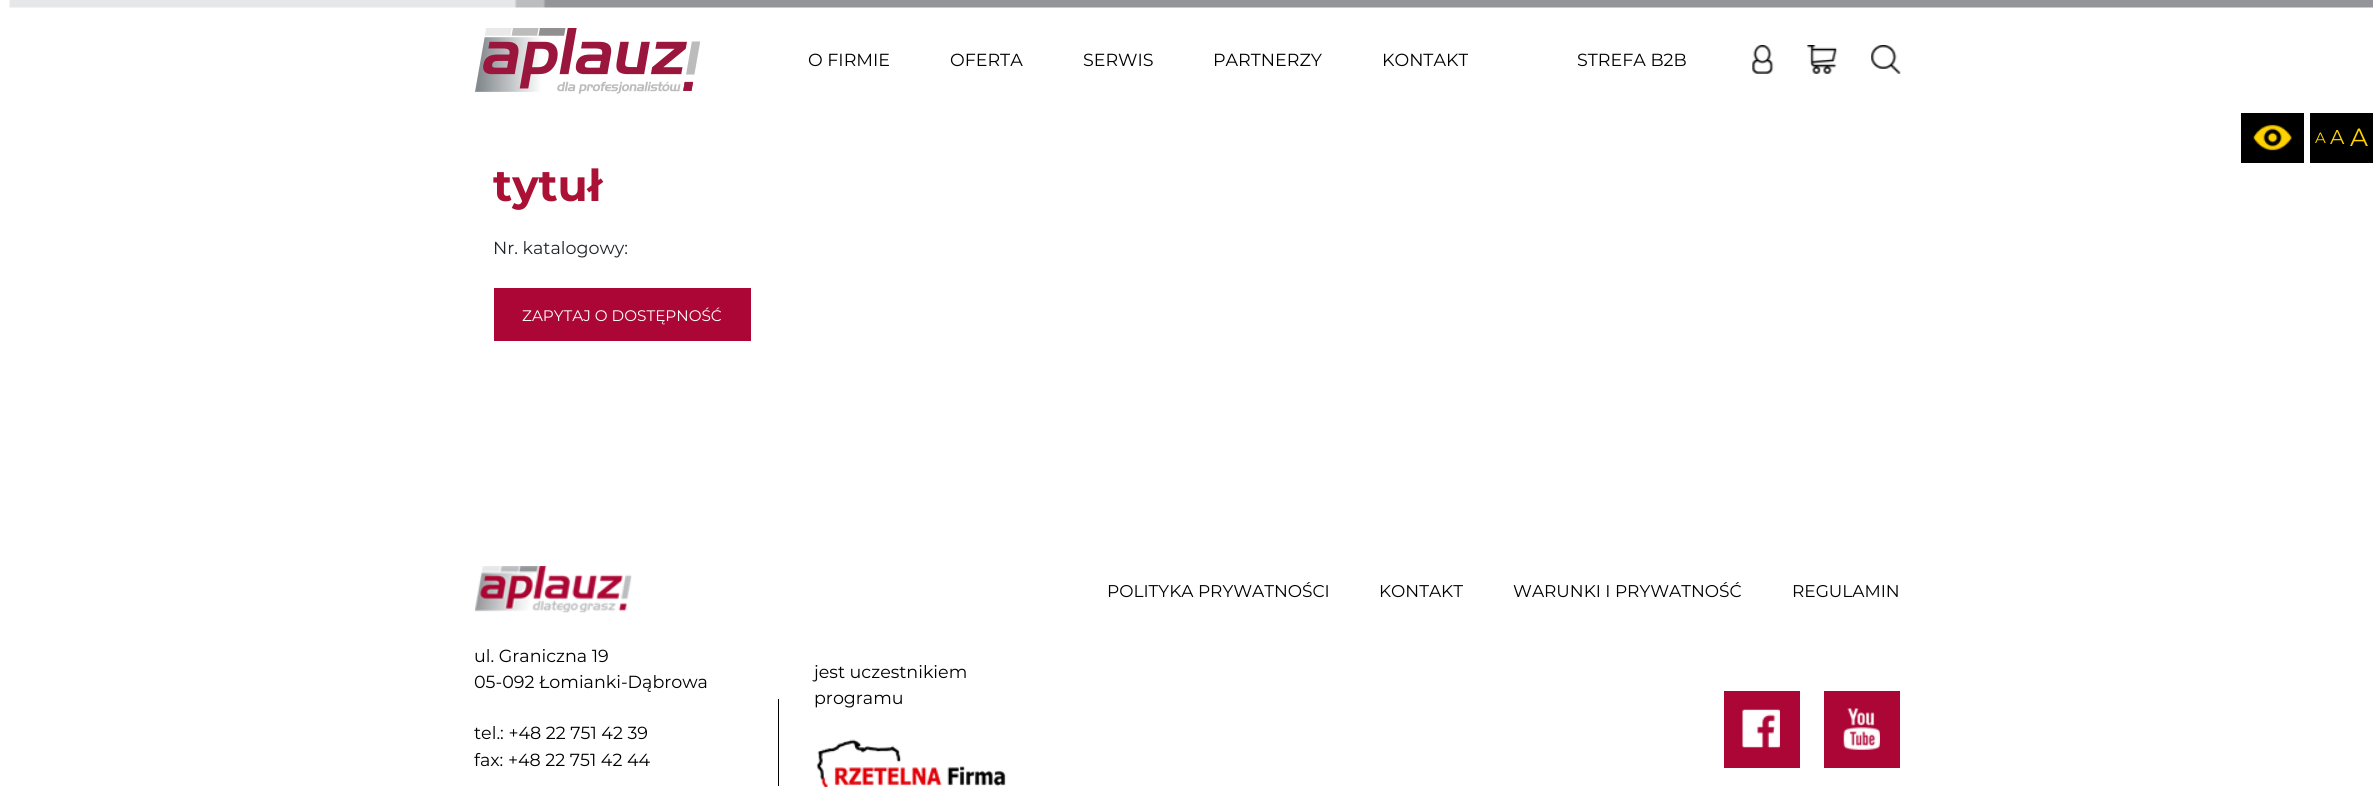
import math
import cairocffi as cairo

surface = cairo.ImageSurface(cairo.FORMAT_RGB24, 2373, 787)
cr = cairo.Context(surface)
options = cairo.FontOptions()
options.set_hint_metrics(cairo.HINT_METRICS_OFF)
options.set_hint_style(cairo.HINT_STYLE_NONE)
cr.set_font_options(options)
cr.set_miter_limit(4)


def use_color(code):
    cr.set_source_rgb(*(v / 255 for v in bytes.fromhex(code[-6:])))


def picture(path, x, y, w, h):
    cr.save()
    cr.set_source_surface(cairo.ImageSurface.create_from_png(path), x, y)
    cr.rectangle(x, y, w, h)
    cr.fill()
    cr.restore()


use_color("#ffffff")
cr.paint()
picture("img1.png", 9, 0, 2364, 8)
picture("img2.png", 475, 28, 225, 66)
cr.select_font_face("Montserrat")
cr.set_font_size(17.5)
use_color("#000000")
cr.move_to(808, 66)
cr.show_text("O FIRMIE")
cr.move_to(950, 66)
cr.show_text("OFERTA")
cr.move_to(1083, 66)
cr.show_text("SERWIS")
cr.move_to(1213, 66)
cr.show_text("PARTNERZY")
cr.move_to(1382, 66)
cr.show_text("KONTAKT")
cr.move_to(1577, 66)
cr.show_text("STREFA B2B")
picture("img3.png", 1752, 45, 22, 29)
picture("img4.png", 1807, 45, 30, 29)
picture("img5.png", 1871, 45, 30, 29)
cr.rectangle(2241, 113, 63, 50)
cr.fill()
picture("img6.png", 2253, 124, 39, 27)
cr.rectangle(2310, 113, 63, 50)
cr.fill()
cr.set_font_size(15)
use_color("#ffd200")
cr.move_to(2315, 143)
cr.show_text("A")
cr.set_font_size(20)
cr.move_to(2330, 144)
cr.show_text("A")
cr.set_font_size(25)
cr.move_to(2350, 146)
cr.show_text("A")
cr.select_font_face("Montserrat", cairo.FONT_SLANT_NORMAL, cairo.FONT_WEIGHT_BOLD)
cr.set_font_size(44)
use_color("#ab1135")
cr.move_to(493, 201)
cr.show_text("tytuł")
cr.select_font_face("Montserrat")
cr.set_font_size(17.5)
use_color("#212529")
cr.move_to(493, 254)
cr.show_text("Nr. katalogowy:")
use_color("#ab0635")
cr.rectangle(494, 288, 257, 53)
cr.fill()
cr.set_font_size(15.25)
use_color("#ffffff")
cr.move_to(522, 321)
cr.show_text("ZAPYTAJ O DOSTĘPNOŚĆ")
cr.set_font_size(17)
use_color("#000000")
cr.move_to(1107, 597)
cr.show_text("POLITYKA PRYWATNOŚCI")
cr.move_to(1379, 597)
cr.show_text("KONTAKT")
cr.move_to(1513, 597)
cr.show_text("WARUNKI I PRYWATNOŚĆ")
cr.move_to(1792, 597)
cr.show_text("REGULAMIN")
use_color("#ab0635")
cr.rectangle(1724, 691, 76, 77)
cr.fill()
picture("img7.png", 1742, 709, 38, 39)
cr.rectangle(1824, 691, 76, 77)
cr.fill()
picture("img8.png", 1843, 708, 37, 42)
picture("img9.png", 475, 566, 157, 47)
cr.set_font_size(17.5)
use_color("#000000")
cr.move_to(474, 662)
cr.show_text("ul. Graniczna 19")
cr.move_to(474, 688)
cr.show_text("05-092 Łomianki-Dąbrowa")
cr.move_to(474, 739)
cr.show_text("tel.: +48 22 751 42 39")
cr.move_to(474, 766)
cr.show_text("fax: +48 22 751 42 44")
cr.move_to(814, 678)
cr.show_text("jest uczestnikiem")
cr.move_to(814, 704)
cr.show_text("programu")
cr.rectangle(778, 699, 1, 87)
cr.fill()
picture("img10.png", 816, 739, 190, 48)
surface.write_to_png("result.png")
